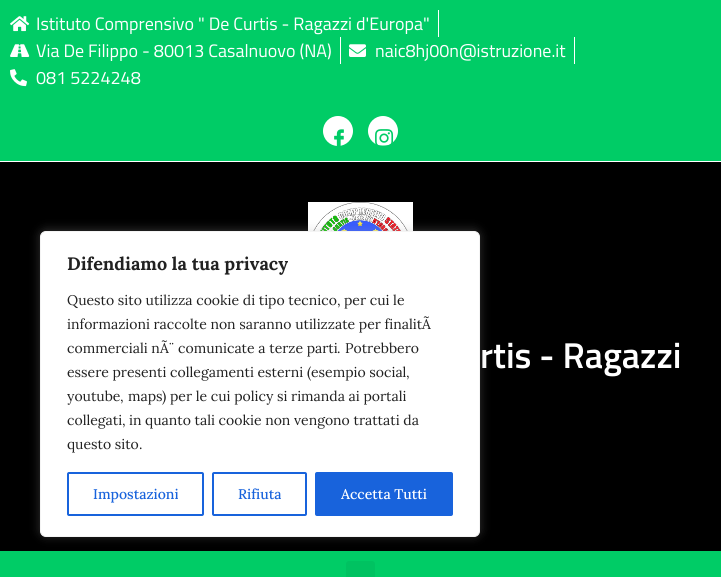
import math
import cairocffi as cairo

surface = cairo.ImageSurface(cairo.FORMAT_RGB24, 721, 577)
cr = cairo.Context(surface)
options = cairo.FontOptions()
options.set_hint_metrics(cairo.HINT_METRICS_OFF)
options.set_hint_style(cairo.HINT_STYLE_NONE)
cr.set_font_options(options)
cr.set_miter_limit(4)


def use_color(code):
    cr.set_source_rgb(*(v / 255 for v in bytes.fromhex(code[-6:])))


def round_rect(x, y, w, h, r):
    cr.new_sub_path()
    for i, (u, v) in enumerate([(x + w - r, y + h - r), (x + r, y + h - r), (x + r, y + r), (x + w - r, y + r)]):
        cr.arc(u, v, r, i * math.pi / 2, (i + 1) * math.pi / 2)
    cr.close_path()


def shadow(x, y, w, h, r, blur, alpha):
    cr.push_group_with_content(cairo.CONTENT_ALPHA)
    cr.set_operator(cairo.OPERATOR_SOURCE)
    for i in range(15, -16, -2):
        e = blur * i / 6
        if min(w, h) + 2 * e > 0:
            cr.set_source_rgba(0, 0, 0, alpha * math.erfc((i - 1) / 8.5) / 2)
            round_rect(x - e, y - e, w + 2 * e, h + 2 * e, max(0, min(r + e + blur * .6, min(w, h) / 2 + e)))
            cr.fill()
    cr.mask(cr.pop_group())


def picture(path, x, y, w, h):
    cr.save()
    cr.set_source_surface(cairo.ImageSurface.create_from_png(path), x, y)
    cr.rectangle(x, y, w, h)
    cr.fill()
    cr.restore()


use_color("#ffffff")
cr.paint()
use_color("#00cc66")
cr.rectangle(0, 0, 721, 161)
cr.fill()
picture("img1.png", 10, 16, 20, 16)
cr.select_font_face("Titillium Web")
cr.set_font_size(18)
use_color("#ffffff")
cr.move_to(36, 30)
cr.show_text("Istituto Comprensivo \" De Curtis - Ragazzi d'Europa\"")
cr.rectangle(438, 10, 1, 27)
cr.fill()
picture("img2.png", 10, 44, 20, 13)
cr.move_to(36, 57)
cr.show_text("Via De Filippo - 80013 Casalnuovo (NA)")
cr.rectangle(340, 37, 1, 27)
cr.fill()
picture("img3.png", 349, 44, 17, 13)
cr.move_to(375, 57)
cr.show_text("naic8hj00n@istruzione.it")
cr.rectangle(574, 37, 1, 27)
cr.fill()
picture("img4.png", 10, 69, 17, 18)
cr.move_to(36, 84)
cr.show_text("081 5224248")
cr.new_path()
cr.arc(338, 131, 15, 0, 2 * math.pi)
cr.fill()
picture("img5.png", 334, 129, 10, 17)
cr.arc(383, 131, 15, 0, 2 * math.pi)
cr.fill()
picture("img6.png", 375, 129, 19, 17)
use_color("#000000")
cr.rectangle(0, 162, 721, 389)
cr.fill()
picture("img7.png", 308, 202, 105, 29)
cr.select_font_face("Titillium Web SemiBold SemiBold")
cr.set_font_size(36)
use_color("#ffffff")
cr.move_to(480, 368)
cr.show_text("rtis - Ragazzi")
use_color("#00cc66")
cr.rectangle(0, 551, 721, 26)
cr.fill()
use_color("#00c261")
round_rect(346, 561, 29, 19, 3)
cr.fill()
use_color("#acabab")
shadow(40, 230, 440, 306, 6, 5, 0.3)
use_color("#ffffff")
round_rect(40.5, 231.5, 439, 305, 5.5)
cr.fill_preserve()
use_color("#f4f4f4")
cr.set_line_width(1)
cr.stroke()
cr.select_font_face("Lora", cairo.FONT_SLANT_NORMAL, cairo.FONT_WEIGHT_BOLD)
cr.set_font_size(18)
use_color("#212121")
cr.move_to(67, 270)
cr.show_text("Difendiamo la tua privacy")
cr.select_font_face("Lora")
cr.set_font_size(14)
cr.move_to(67, 305)
cr.show_text("Questo sito utilizza cookie di tipo tecnico")
cr.select_font_face("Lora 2")
cr.move_to(337, 305)
cr.show_text(",")
cr.select_font_face("Lora")
cr.move_to(344, 305)
cr.show_text("per cui le")
cr.move_to(67, 329)
cr.show_text("informazioni raccolte non saranno utilizzate per finalit")
cr.select_font_face("Lora 2")
cr.move_to(422, 329)
cr.show_text("Ã")
cr.select_font_face("Lora")
cr.move_to(67, 353)
cr.show_text("commerciali n")
cr.select_font_face("Lora 2")
cr.move_to(160, 353)
cr.show_text("Ã¨")
cr.select_font_face("Lora")
cr.move_to(178, 353)
cr.show_text("comunicate a terze parti")
cr.select_font_face("Lora 2")
cr.move_to(337, 353)
cr.show_text(".")
cr.select_font_face("Lora")
cr.move_to(345, 353)
cr.show_text("Potrebbero")
cr.move_to(67, 377)
cr.show_text("essere presenti collegamenti esterni")
cr.select_font_face("Lora 2")
cr.move_to(307, 377)
cr.show_text("(")
cr.select_font_face("Lora")
cr.move_to(311, 377)
cr.show_text("esempio social")
cr.select_font_face("Lora 2")
cr.move_to(406, 377)
cr.show_text(",")
cr.select_font_face("Lora")
cr.move_to(67, 401)
cr.show_text("youtube")
cr.select_font_face("Lora 2")
cr.move_to(120, 401)
cr.show_text(",")
cr.select_font_face("Lora")
cr.move_to(128, 401)
cr.show_text("maps")
cr.select_font_face("Lora 2")
cr.move_to(162, 401)
cr.show_text(")")
cr.select_font_face("Lora")
cr.move_to(170, 401)
cr.show_text("per le cui policy si rimanda ai portali")
cr.move_to(67, 425)
cr.show_text("collegati")
cr.select_font_face("Lora 2")
cr.move_to(122, 425)
cr.show_text(",")
cr.select_font_face("Lora")
cr.move_to(129, 425)
cr.show_text("in quanto tali cookie non vengono trattati da")
cr.move_to(67, 449)
cr.show_text("questo sito")
cr.select_font_face("Lora 2")
cr.move_to(139, 449)
cr.show_text(".")
round_rect(68, 473, 135, 42, 1)
use_color("#1863dc")
cr.set_line_width(2)
cr.stroke()
cr.select_font_face("Lora Medium")
cr.move_to(93, 499)
cr.show_text("Impostazioni")
round_rect(213, 473, 93, 42, 1)
cr.stroke()
cr.move_to(238, 499)
cr.show_text("Rifiuta")
round_rect(316, 473, 136, 42, 1)
cr.fill_preserve()
cr.stroke()
use_color("#ffffff")
cr.move_to(341, 499)
cr.show_text("Accetta Tutti")
surface.write_to_png("result.png")
